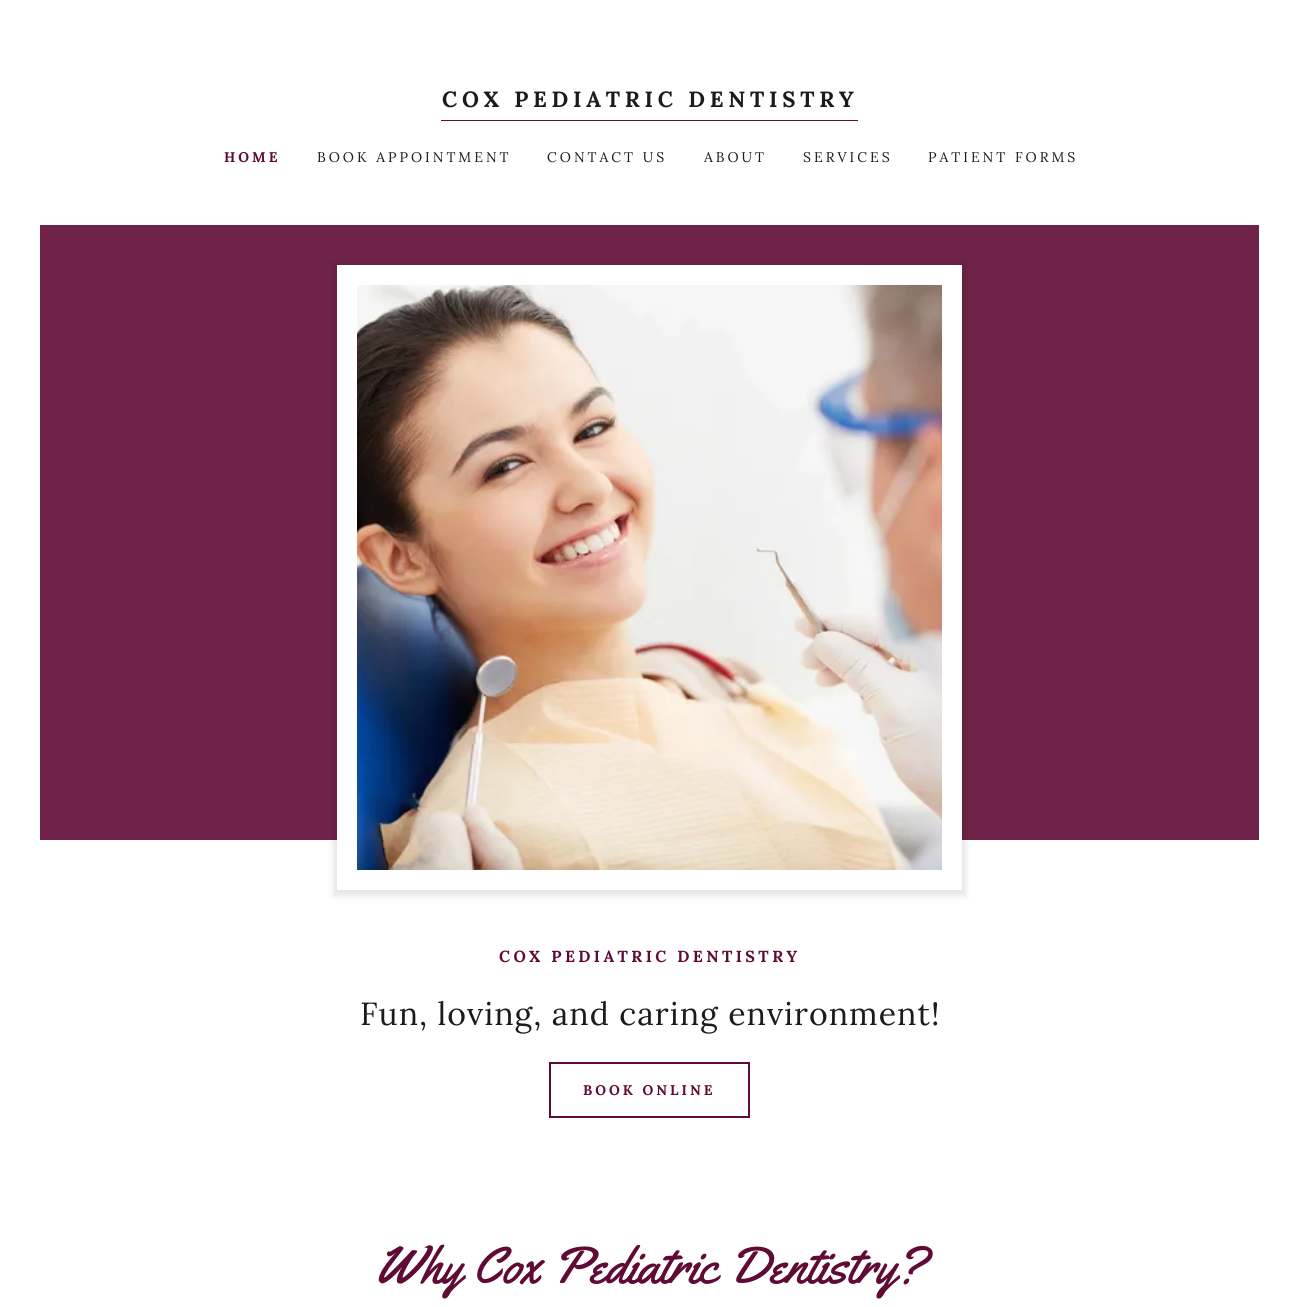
import math
import cairocffi as cairo

surface = cairo.ImageSurface(cairo.FORMAT_RGB24, 1299, 1307)
cr = cairo.Context(surface)
options = cairo.FontOptions()
options.set_hint_metrics(cairo.HINT_METRICS_OFF)
options.set_hint_style(cairo.HINT_STYLE_NONE)
cr.set_font_options(options)
cr.set_miter_limit(4)


def use_color(code):
    cr.set_source_rgb(*(v / 255 for v in bytes.fromhex(code[-6:])))


def spaced_text(x, y, s, letter, word):
    cr.move_to(x, y)
    for ch in s:
        cr.show_text(ch)
        cr.rel_move_to(letter + word * (ch == ' '), 0)


def round_rect(x, y, w, h, r):
    cr.new_sub_path()
    for i, (u, v) in enumerate([(x + w - r, y + h - r), (x + r, y + h - r), (x + r, y + r), (x + w - r, y + r)]):
        cr.arc(u, v, r, i * math.pi / 2, (i + 1) * math.pi / 2)
    cr.close_path()


def shadow(x, y, w, h, r, blur, alpha):
    cr.push_group_with_content(cairo.CONTENT_ALPHA)
    cr.set_operator(cairo.OPERATOR_SOURCE)
    for i in range(15, -16, -2):
        e = blur * i / 6
        if min(w, h) + 2 * e > 0:
            cr.set_source_rgba(0, 0, 0, alpha * math.erfc((i - 1) / 8.5) / 2)
            round_rect(x - e, y - e, w + 2 * e, h + 2 * e, max(0, min(r + e + blur * .6, min(w, h) / 2 + e)))
            cr.fill()
    cr.mask(cr.pop_group())


def picture(path, x, y, w, h):
    cr.save()
    cr.set_source_surface(cairo.ImageSurface.create_from_png(path), x, y)
    cr.rectangle(x, y, w, h)
    cr.fill()
    cr.restore()


use_color("#ffffff")
cr.paint()
use_color("#5f0b35")
cr.rectangle(441, 120, 417, 1)
cr.fill()
cr.select_font_face("Lora", cairo.FONT_SLANT_NORMAL, cairo.FONT_WEIGHT_BOLD)
cr.set_font_size(22)
use_color("#1b1b1b")
spaced_text(442, 107, "COX PEDIATRIC DENTISTRY", 4.75, 0)
cr.set_font_size(14)
use_color("#5f0b35")
spaced_text(224, 162, "HOME", 3, 0)
cr.select_font_face("Lora")
use_color("#1b1b1b")
spaced_text(317, 162, "BOOK APPOINTMENT", 3, 0)
spaced_text(547, 162, "CONTACT US", 3, 0)
spaced_text(704, 162, "ABOUT", 3, 0)
spaced_text(803, 162, "SERVICES", 3, 0)
spaced_text(928, 162, "PATIENT FORMS", 3, 0)
use_color("#6f2349")
cr.rectangle(40, 225, 1219, 615)
cr.fill()
use_color("#000000")
shadow(333, 263, 633, 633, 0, 3, 0.1)
use_color("#ffffff")
cr.rectangle(337, 265, 625, 625)
cr.fill()
picture("img1.png", 357, 285, 585, 585)
cr.select_font_face("Lora", cairo.FONT_SLANT_NORMAL, cairo.FONT_WEIGHT_BOLD)
cr.set_font_size(16)
use_color("#5f0b35")
spaced_text(499, 962, "COX PEDIATRIC DENTISTRY", 3.4, 0)
cr.select_font_face("Lora")
cr.set_font_size(32)
use_color("#1b1b1b")
spaced_text(360, 1025, "Fun, loving, and caring environment!", 1, 0)
cr.rectangle(550, 1063, 199, 54)
use_color("#5f0b35")
cr.stroke()
cr.select_font_face("Lora", cairo.FONT_SLANT_NORMAL, cairo.FONT_WEIGHT_BOLD)
cr.set_font_size(14)
spaced_text(583, 1095, "BOOK ONLINE", 3, 0)
cr.select_font_face("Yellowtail")
cr.set_font_size(52)
cr.move_to(375, 1283)
cr.show_text("Why Cox Pediatric Dentistry?")
surface.write_to_png("result.png")
